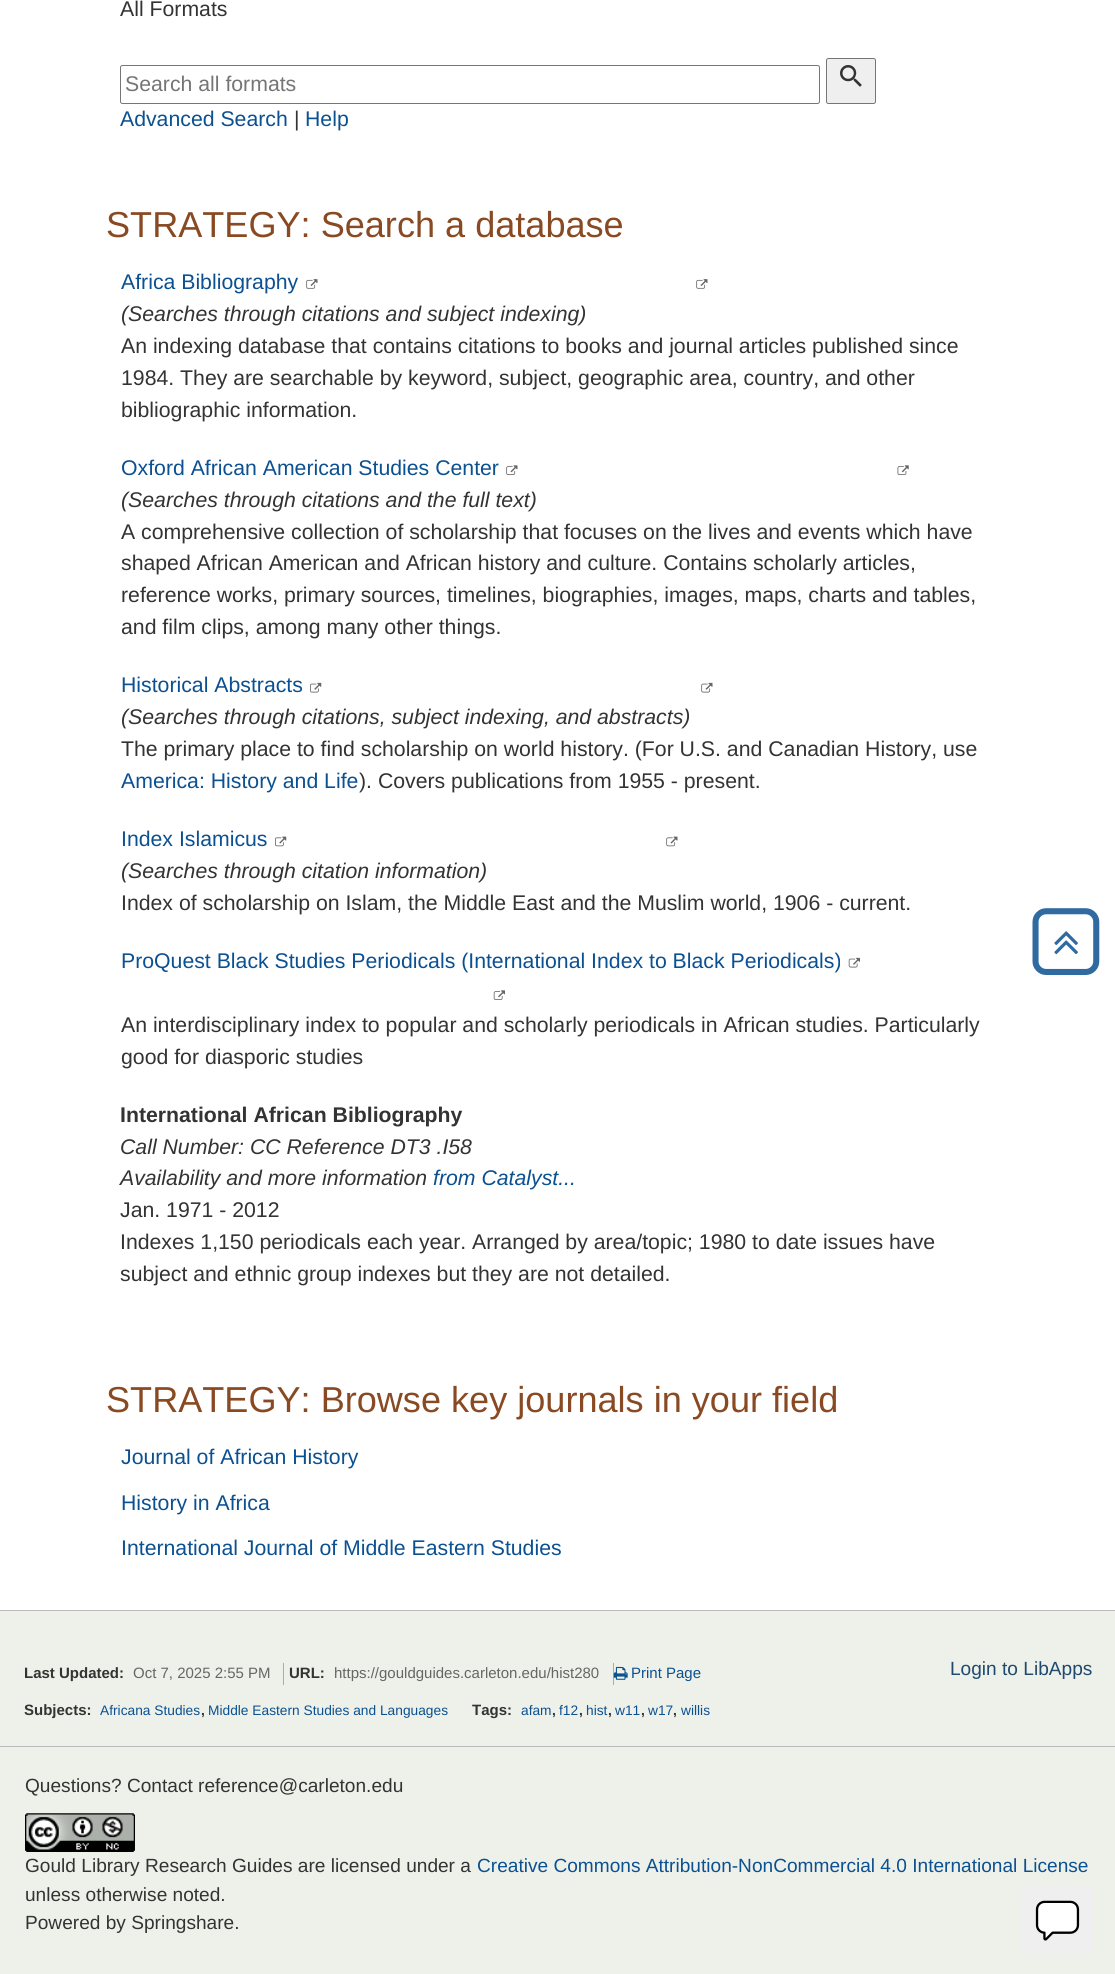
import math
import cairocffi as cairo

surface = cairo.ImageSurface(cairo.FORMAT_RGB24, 1115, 1974)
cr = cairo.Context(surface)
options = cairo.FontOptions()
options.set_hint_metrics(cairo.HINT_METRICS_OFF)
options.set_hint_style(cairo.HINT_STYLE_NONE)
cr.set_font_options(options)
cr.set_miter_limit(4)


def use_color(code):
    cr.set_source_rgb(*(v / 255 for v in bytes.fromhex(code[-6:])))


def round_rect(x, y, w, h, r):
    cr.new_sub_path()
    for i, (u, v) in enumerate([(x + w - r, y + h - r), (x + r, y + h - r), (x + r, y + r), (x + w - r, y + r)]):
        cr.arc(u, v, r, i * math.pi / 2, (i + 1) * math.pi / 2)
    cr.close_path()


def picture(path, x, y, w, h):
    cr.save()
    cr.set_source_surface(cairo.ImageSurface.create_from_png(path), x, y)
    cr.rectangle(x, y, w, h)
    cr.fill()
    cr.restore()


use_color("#ffffff")
cr.paint()
cr.select_font_face("Liberation Sans")
cr.set_font_size(21.25)
use_color("#333333")
cr.move_to(120, 16)
cr.show_text("All Formats")
round_rect(120.5, 65.5, 699, 38, 2)
use_color("#767676")
cr.set_line_width(1)
cr.stroke()
use_color("#757575")
cr.move_to(125, 91)
cr.show_text("Search all formats")
use_color("#efefef")
round_rect(826.5, 58.5, 49, 45, 2)
cr.fill_preserve()
use_color("#767676")
cr.stroke()
picture("img1.png", 840, 65, 22, 22)
use_color("#0b5091")
cr.move_to(120, 126)
cr.show_text("Advanced Search")
use_color("#333333")
cr.move_to(294, 126)
cr.show_text("|")
use_color("#0b5091")
cr.move_to(305, 126)
cr.show_text("Help")
cr.set_font_size(36.1)
use_color("#894a23")
cr.move_to(106, 237)
cr.show_text("STRATEGY: Search a database")
cr.set_font_size(21.25)
use_color("#0b5091")
cr.move_to(121, 289)
cr.show_text("Africa Bibliography")
picture("img2.png", 306, 279, 12, 10)
picture("img2.png", 696, 279, 12, 10)
cr.select_font_face("Liberation Sans", cairo.FONT_SLANT_ITALIC)
use_color("#333333")
cr.move_to(121, 321)
cr.show_text("(Searches through citations and subject indexing)")
cr.select_font_face("Liberation Sans")
cr.move_to(121, 353)
cr.show_text("An indexing database that contains citations to books and journal articles published since")
cr.move_to(121, 385)
cr.show_text("1984. They are searchable by keyword, subject, geographic area, country, and other")
cr.move_to(121, 417)
cr.show_text("bibliographic information.")
use_color("#0b5091")
cr.move_to(121, 475)
cr.show_text("Oxford African American Studies Center")
picture("img3.png", 506, 465, 12, 10)
picture("img4.png", 897, 465, 12, 10)
cr.select_font_face("Liberation Sans", cairo.FONT_SLANT_ITALIC)
use_color("#333333")
cr.move_to(121, 507)
cr.show_text("(Searches through citations and the full text)")
cr.select_font_face("Liberation Sans")
cr.move_to(121, 539)
cr.show_text("A comprehensive collection of scholarship that focuses on the lives and events which have")
cr.move_to(121, 570)
cr.show_text("shaped African American and African history and culture. Contains scholarly articles,")
cr.move_to(121, 602)
cr.show_text("reference works, primary sources, timelines, biographies, images, maps, charts and tables,")
cr.move_to(121, 634)
cr.show_text("and film clips, among many other things.")
use_color("#0b5091")
cr.move_to(121, 692)
cr.show_text("Historical Abstracts")
picture("img5.png", 310, 682, 12, 11)
picture("img6.png", 701, 682, 12, 11)
cr.select_font_face("Liberation Sans", cairo.FONT_SLANT_ITALIC)
use_color("#333333")
cr.move_to(121, 724)
cr.show_text("(Searches through citations, subject indexing, and abstracts)")
cr.select_font_face("Liberation Sans")
cr.move_to(121, 756)
cr.show_text("The primary place to find scholarship on world history. (For U.S. and Canadian History, use")
use_color("#0b5091")
cr.move_to(121, 788)
cr.show_text("America: History and Life")
use_color("#333333")
cr.move_to(359, 788)
cr.show_text("). Covers publications from 1955 - present.")
use_color("#0b5091")
cr.move_to(121, 846)
cr.show_text("Index Islamicus")
picture("img7.png", 275, 836, 12, 11)
picture("img8.png", 666, 836, 12, 11)
cr.select_font_face("Liberation Sans", cairo.FONT_SLANT_ITALIC)
use_color("#333333")
cr.move_to(121, 878)
cr.show_text("(Searches through citation information)")
cr.select_font_face("Liberation Sans")
cr.move_to(121, 910)
cr.show_text("Index of scholarship on Islam, the Middle East and the Muslim world, 1906 - current.")
use_color("#0b5091")
cr.move_to(121, 968)
cr.show_text("ProQuest Black Studies Periodicals (International Index to Black Periodicals)")
picture("img9.png", 848, 957, 12, 11)
picture("img10.png", 493, 990, 12, 10)
use_color("#333333")
cr.move_to(121, 1032)
cr.show_text("An interdisciplinary index to popular and scholarly periodicals in African studies. Particularly")
cr.move_to(121, 1064)
cr.show_text("good for diasporic studies")
cr.select_font_face("Liberation Sans", cairo.FONT_SLANT_NORMAL, cairo.FONT_WEIGHT_BOLD)
cr.move_to(120, 1122)
cr.show_text("International African Bibliography")
cr.select_font_face("Liberation Sans", cairo.FONT_SLANT_ITALIC)
cr.move_to(120, 1154)
cr.show_text("Call Number: CC Reference DT3 .I58")
cr.move_to(120, 1185)
cr.show_text("Availability and more information")
use_color("#0b5091")
cr.move_to(433, 1185)
cr.show_text("from Catalyst...")
cr.select_font_face("Liberation Sans")
use_color("#333333")
cr.move_to(120, 1217)
cr.show_text("Jan. 1971 - 2012")
cr.move_to(120, 1249)
cr.show_text("Indexes 1,150 periodicals each year. Arranged by area/topic; 1980 to date issues have")
cr.move_to(120, 1281)
cr.show_text("subject and ethnic group indexes but they are not detailed.")
cr.set_font_size(36.1)
use_color("#894a23")
cr.move_to(106, 1412)
cr.show_text("STRATEGY: Browse key journals in your field")
cr.set_font_size(21.25)
use_color("#0b5091")
cr.move_to(121, 1464)
cr.show_text("Journal of African History")
cr.move_to(121, 1510)
cr.show_text("History in Africa")
cr.move_to(121, 1555)
cr.show_text("International Journal of Middle Eastern Studies")
picture("img11.png", 1032, 908, 68, 67)
picture("img12.png", 1054, 931, 24, 24)
use_color("#eef1e9")
cr.rectangle(0, 1611, 1115, 135)
cr.fill()
use_color("#bbbbbb")
cr.rectangle(0, 1610, 1115, 1)
cr.fill()
use_color("#acacac")
cr.rectangle(283, 1663, 1, 22)
cr.fill()
cr.select_font_face("Liberation Sans", cairo.FONT_SLANT_NORMAL, cairo.FONT_WEIGHT_BOLD)
cr.set_font_size(15)
use_color("#333333")
cr.move_to(24, 1678)
cr.show_text("Last Updated:")
cr.select_font_face("Liberation Sans")
use_color("#666666")
cr.move_to(133, 1678)
cr.show_text("Oct 7, 2025 2:55 PM")
use_color("#acacac")
cr.rectangle(613, 1663, 1, 22)
cr.fill()
cr.select_font_face("Liberation Sans", cairo.FONT_SLANT_NORMAL, cairo.FONT_WEIGHT_BOLD)
use_color("#333333")
cr.move_to(289, 1678)
cr.show_text("URL:")
cr.select_font_face("Liberation Sans")
use_color("#666666")
cr.move_to(334, 1678)
cr.show_text("https://gouldguides.carleton.edu/hist280")
picture("img13.png", 613, 1666, 15, 14)
use_color("#0b5091")
cr.move_to(631, 1678)
cr.show_text("Print Page")
cr.set_font_size(19.1)
use_color("#1f496e")
cr.move_to(950, 1675)
cr.show_text("Login to LibApps")
cr.select_font_face("Liberation Sans", cairo.FONT_SLANT_NORMAL, cairo.FONT_WEIGHT_BOLD)
cr.set_font_size(15)
use_color("#333333")
cr.move_to(24, 1715)
cr.show_text("Subjects:")
cr.select_font_face("Liberation Sans")
cr.set_font_size(13.75)
use_color("#0b5091")
cr.move_to(100, 1715)
cr.show_text("Africana Studies")
cr.select_font_face("Liberation Sans", cairo.FONT_SLANT_NORMAL, cairo.FONT_WEIGHT_BOLD)
use_color("#333333")
cr.move_to(201, 1715)
cr.show_text(",")
cr.select_font_face("Liberation Sans")
use_color("#0b5091")
cr.move_to(208, 1715)
cr.show_text("Middle Eastern Studies and Languages")
cr.select_font_face("Liberation Sans", cairo.FONT_SLANT_NORMAL, cairo.FONT_WEIGHT_BOLD)
cr.set_font_size(15)
use_color("#333333")
cr.move_to(472, 1715)
cr.show_text("Tags:")
cr.select_font_face("Liberation Sans")
cr.set_font_size(13.75)
use_color("#0b5091")
cr.move_to(521, 1715)
cr.show_text("afam")
cr.select_font_face("Liberation Sans", cairo.FONT_SLANT_NORMAL, cairo.FONT_WEIGHT_BOLD)
use_color("#333333")
cr.move_to(552, 1715)
cr.show_text(",")
cr.select_font_face("Liberation Sans")
use_color("#0b5091")
cr.move_to(559, 1715)
cr.show_text("f12")
cr.select_font_face("Liberation Sans", cairo.FONT_SLANT_NORMAL, cairo.FONT_WEIGHT_BOLD)
use_color("#333333")
cr.move_to(579, 1715)
cr.show_text(",")
cr.select_font_face("Liberation Sans")
use_color("#0b5091")
cr.move_to(586, 1715)
cr.show_text("hist")
cr.select_font_face("Liberation Sans", cairo.FONT_SLANT_NORMAL, cairo.FONT_WEIGHT_BOLD)
use_color("#333333")
cr.move_to(608, 1715)
cr.show_text(",")
cr.select_font_face("Liberation Sans")
use_color("#0b5091")
cr.move_to(615, 1715)
cr.show_text("w11")
cr.select_font_face("Liberation Sans", cairo.FONT_SLANT_NORMAL, cairo.FONT_WEIGHT_BOLD)
use_color("#333333")
cr.move_to(641, 1715)
cr.show_text(",")
cr.select_font_face("Liberation Sans")
use_color("#0b5091")
cr.move_to(648, 1715)
cr.show_text("w17")
cr.select_font_face("Liberation Sans", cairo.FONT_SLANT_NORMAL, cairo.FONT_WEIGHT_BOLD)
use_color("#333333")
cr.move_to(673, 1715)
cr.show_text(",")
cr.select_font_face("Liberation Sans")
use_color("#0b5091")
cr.move_to(681, 1715)
cr.show_text("willis")
use_color("#eef1e9")
cr.rectangle(0, 1747, 1115, 227)
cr.fill()
use_color("#bbbbbb")
cr.rectangle(0, 1746, 1115, 1)
cr.fill()
cr.set_font_size(19.1)
use_color("#333333")
cr.move_to(25, 1792)
cr.show_text("Questions? Contact reference@carleton.edu")
picture("img14.png", 25, 1813, 110, 39)
cr.move_to(25, 1872)
cr.show_text("Gould Library Research Guides are licensed under a")
use_color("#0b5091")
cr.move_to(477, 1872)
cr.show_text("Creative Commons Attribution-NonCommercial 4.0 International License")
use_color("#333333")
cr.move_to(25, 1901)
cr.show_text("unless otherwise noted.")
cr.move_to(25, 1929)
cr.show_text("Powered by Springshare.")
use_color("#efefef")
round_rect(1021, 1886, 73, 68, 6)
cr.fill()
picture("img15.png", 1035, 1900, 45, 41)
surface.write_to_png("result.png")
